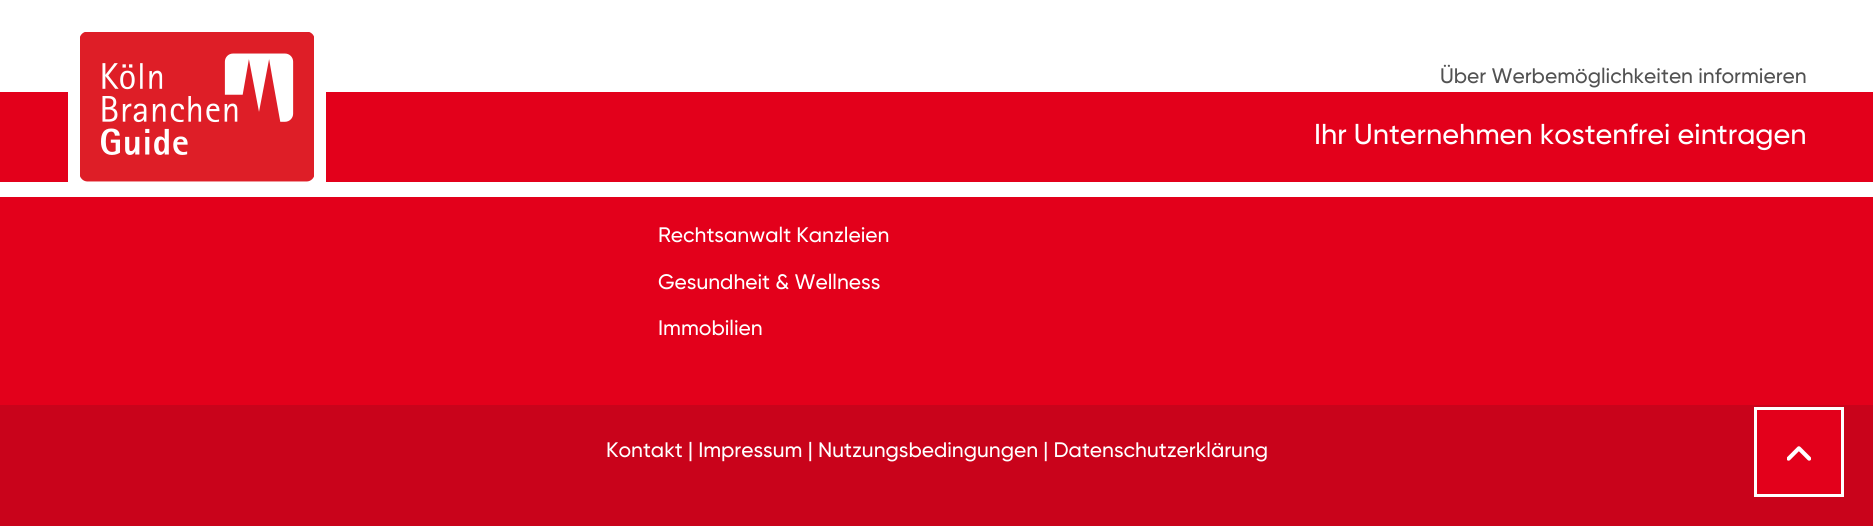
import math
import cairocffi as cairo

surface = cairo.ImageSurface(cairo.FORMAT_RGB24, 1873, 526)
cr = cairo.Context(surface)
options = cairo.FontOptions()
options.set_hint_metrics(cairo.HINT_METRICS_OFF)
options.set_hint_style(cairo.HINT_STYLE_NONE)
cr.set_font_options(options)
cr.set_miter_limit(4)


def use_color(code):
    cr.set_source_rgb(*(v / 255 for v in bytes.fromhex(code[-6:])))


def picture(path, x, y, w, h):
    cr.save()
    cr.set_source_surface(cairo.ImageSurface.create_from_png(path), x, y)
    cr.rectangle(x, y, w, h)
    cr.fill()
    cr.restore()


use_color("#e3001b")
cr.paint()
use_color("#ffffff")
cr.rectangle(0, 0, 1873, 197)
cr.fill()
cr.select_font_face("Gilroy Medium")
cr.set_font_size(21)
use_color("#525252")
cr.move_to(1440, 83)
cr.show_text("Über Werbemöglichkeiten informieren")
use_color("#e3001b")
cr.rectangle(0, 92, 1873, 90)
cr.fill()
use_color("#ffffff")
cr.rectangle(68, 92, 258, 90)
cr.fill()
picture("img1.png", 80, 32, 234, 150)
cr.set_font_size(28.75)
cr.move_to(1314, 144)
cr.show_text("Ihr Unternehmen kostenfrei eintragen")
cr.set_font_size(21)
cr.move_to(658, 242)
cr.show_text("Rechtsanwalt Kanzleien")
cr.move_to(658, 289)
cr.show_text("Gesundheit & Wellness")
cr.move_to(658, 335)
cr.show_text("Immobilien")
use_color("#c9031b")
cr.rectangle(0, 405, 1873, 121)
cr.fill()
use_color("#ffffff")
cr.move_to(606, 457)
cr.show_text("Kontakt | Impressum | Nutzungsbedingungen | Datenschutzerklärung")
use_color("#e3001b")
cr.rectangle(1755.5, 408.5, 87, 87)
cr.fill_preserve()
use_color("#ffffff")
cr.set_line_width(3)
cr.stroke()
picture("img2.png", 1787, 446, 24, 15)
surface.write_to_png("result.png")
